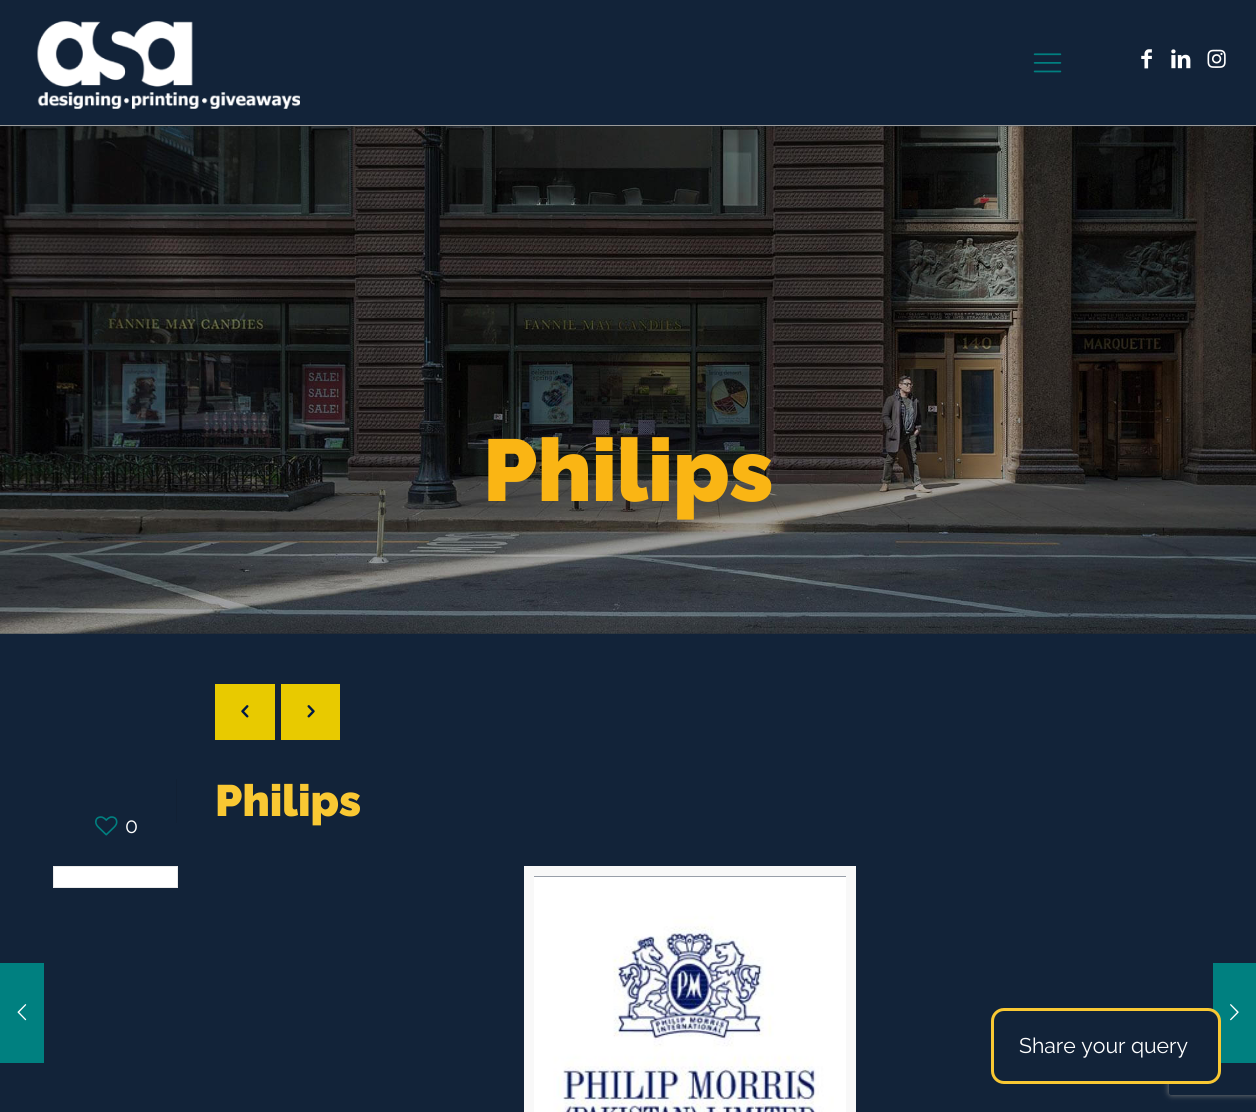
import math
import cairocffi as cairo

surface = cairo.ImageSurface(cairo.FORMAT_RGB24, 1256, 1112)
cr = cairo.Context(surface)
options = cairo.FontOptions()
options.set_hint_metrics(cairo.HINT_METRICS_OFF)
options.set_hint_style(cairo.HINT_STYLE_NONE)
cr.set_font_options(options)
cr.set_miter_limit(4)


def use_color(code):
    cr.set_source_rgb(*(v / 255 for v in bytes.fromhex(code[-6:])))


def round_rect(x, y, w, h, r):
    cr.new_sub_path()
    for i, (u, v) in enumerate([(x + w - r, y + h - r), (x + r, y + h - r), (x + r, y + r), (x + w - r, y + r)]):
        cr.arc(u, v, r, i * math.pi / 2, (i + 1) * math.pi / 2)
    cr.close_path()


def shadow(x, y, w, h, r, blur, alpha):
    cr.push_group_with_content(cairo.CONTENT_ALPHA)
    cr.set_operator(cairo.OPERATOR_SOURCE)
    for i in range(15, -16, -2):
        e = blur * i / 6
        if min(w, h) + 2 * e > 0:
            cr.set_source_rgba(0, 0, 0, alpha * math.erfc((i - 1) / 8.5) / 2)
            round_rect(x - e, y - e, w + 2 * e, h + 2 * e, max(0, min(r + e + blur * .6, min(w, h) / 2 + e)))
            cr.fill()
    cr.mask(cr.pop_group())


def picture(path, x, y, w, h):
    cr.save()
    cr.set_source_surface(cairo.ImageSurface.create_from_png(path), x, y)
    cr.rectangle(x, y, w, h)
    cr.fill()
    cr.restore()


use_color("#122339")
cr.paint()
use_color("#9b9b9b")
cr.rectangle(0, 125, 1256, 1)
cr.fill()
picture("img1.png", 37, 21, 263, 88)
picture("img2.png", 1033, 53, 29, 20)
picture("img3.png", 1141, 49, 11, 20)
picture("img4.png", 1171, 49, 20, 20)
picture("img5.png", 1207, 49, 19, 19)
picture("img6.png", 0, 126, 1256, 508)
cr.select_font_face("Raleway Black")
cr.set_font_size(87.5)
use_color("#fab514")
cr.move_to(483, 501)
cr.show_text("Philips")
use_color("#e8ca00")
cr.rectangle(215, 684, 60, 56)
cr.fill()
picture("img7.png", 241, 705, 8, 13)
cr.rectangle(281, 684, 59, 56)
cr.fill()
picture("img8.png", 307, 705, 8, 13)
picture("img9.png", 95, 816, 23, 20)
cr.select_font_face("Raleway")
cr.set_font_size(21.25)
use_color("#ffffff")
cr.move_to(125, 833)
cr.show_text("0")
use_color("#112034")
cr.rectangle(176, 779, 1, 44)
cr.fill()
cr.select_font_face("Raleway Black")
cr.set_font_size(44)
use_color("#f9c833")
cr.move_to(215, 816)
cr.show_text("Philips")
use_color("#ffffff")
cr.rectangle(53.5, 866.5, 124, 21)
cr.fill_preserve()
use_color("#ebebeb")
cr.set_line_width(1)
cr.stroke()
cr.rectangle(529, 871, 322, 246)
use_color("#f8f8f8")
cr.set_line_width(10)
cr.stroke()
picture("img10.png", 534, 876, 312, 236)
use_color("#008080")
cr.rectangle(0, 963, 44, 100)
cr.fill()
picture("img11.png", 17, 1004, 10, 17)
cr.save()
cr.set_fill_rule(cairo.FILL_RULE_EVEN_ODD)
cr.new_path()
cr.move_to(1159, 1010)
cr.line_to(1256, 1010)
cr.line_to(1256, 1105)
cr.line_to(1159, 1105)
cr.close_path()
cr.move_to(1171.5, 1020)
cr.line_to(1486.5, 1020)
cr.curve_to(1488, 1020, 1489, 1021, 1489, 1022.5)
cr.line_to(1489, 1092.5)
cr.curve_to(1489, 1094, 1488, 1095, 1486.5, 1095)
cr.line_to(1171.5, 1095)
cr.curve_to(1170, 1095, 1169, 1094, 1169, 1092.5)
cr.line_to(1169, 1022.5)
cr.curve_to(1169, 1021, 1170, 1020, 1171.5, 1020)
cr.close_path()
cr.clip()
use_color("#808080")
shadow(1169, 1020, 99, 75, 2.5, 3, 1)
cr.restore()
cr.rectangle(1213, 963, 43, 100)
cr.fill()
picture("img12.png", 1230, 1004, 9, 17)
use_color("#122339")
round_rect(992.5, 1009.5, 227, 73, 11.5)
cr.fill_preserve()
use_color("#f9c833")
cr.set_line_width(3)
cr.stroke()
cr.select_font_face("Raleway")
cr.set_font_size(21.25)
use_color("#ffffff")
cr.move_to(1019, 1053)
cr.show_text("Share your query")
surface.write_to_png("result.png")
